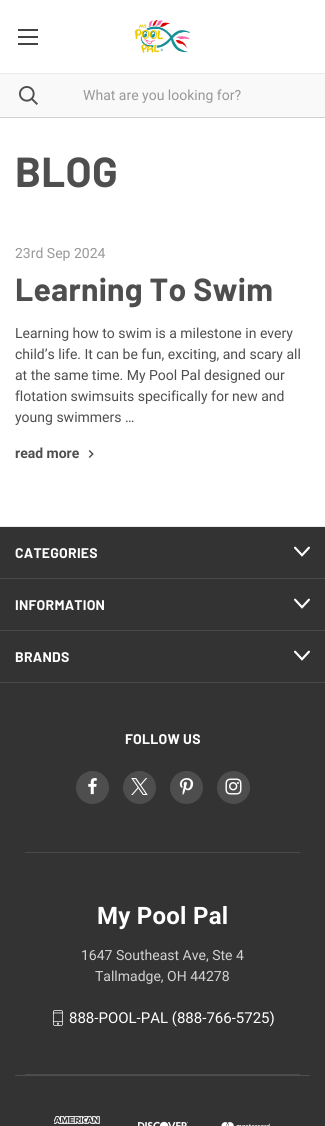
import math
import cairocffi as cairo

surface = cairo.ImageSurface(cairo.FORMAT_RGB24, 325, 1126)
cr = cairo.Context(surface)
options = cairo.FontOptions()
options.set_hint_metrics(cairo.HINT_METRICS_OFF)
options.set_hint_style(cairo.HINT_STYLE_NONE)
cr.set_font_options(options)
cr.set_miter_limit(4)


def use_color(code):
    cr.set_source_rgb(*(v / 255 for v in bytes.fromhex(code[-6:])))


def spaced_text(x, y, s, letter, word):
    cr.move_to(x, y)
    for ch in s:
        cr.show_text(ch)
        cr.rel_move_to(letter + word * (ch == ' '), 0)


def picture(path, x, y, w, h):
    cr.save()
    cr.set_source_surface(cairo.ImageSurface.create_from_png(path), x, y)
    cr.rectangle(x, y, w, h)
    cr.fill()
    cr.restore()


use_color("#ffffff")
cr.paint()
use_color("#424242")
cr.rectangle(18, 36, 20, 2)
cr.fill()
cr.rectangle(18, 29, 20, 2)
cr.fill()
cr.rectangle(18, 43, 20, 2)
cr.fill()
picture("img1.png", 134, 20, 56, 33)
use_color("#f9f9f9")
cr.rectangle(0, 74, 325, 43)
cr.fill()
picture("img2.png", 19, 86, 19, 19)
use_color("#ebebeb")
cr.rectangle(0, 73, 325, 1)
cr.fill()
cr.select_font_face("Roboto")
cr.set_font_size(14)
use_color("#989898")
cr.move_to(83, 100)
cr.show_text("What are you looking for?")
use_color("#d2d2d2")
cr.rectangle(0, 117, 325, 1)
cr.fill()
cr.select_font_face("Barlow", cairo.FONT_SLANT_NORMAL, cairo.FONT_WEIGHT_BOLD)
cr.set_font_size(42)
use_color("#4e4e4e")
spaced_text(15, 187, "BLOG", 0.25, 0)
cr.select_font_face("Roboto")
cr.set_font_size(14)
use_color("#989898")
cr.move_to(15, 258)
cr.show_text("23rd Sep 2024")
cr.select_font_face("Barlow", cairo.FONT_SLANT_NORMAL, cairo.FONT_WEIGHT_BOLD)
cr.set_font_size(32)
use_color("#4e4e4e")
spaced_text(15, 301, "Learning To Swim", 0.25, 0)
cr.select_font_face("Roboto")
cr.set_font_size(14)
cr.move_to(15, 338)
cr.show_text("Learning how to swim is a milestone in every")
cr.move_to(15, 359)
cr.show_text("child’s life. It can be fun, exciting, and scary all")
cr.move_to(15, 380)
cr.show_text("at the same time. My Pool Pal designed our")
cr.move_to(15, 401)
cr.show_text("flotation swimsuits specifically for new and")
cr.move_to(15, 422)
cr.show_text("young swimmers …")
cr.select_font_face("Roboto", cairo.FONT_SLANT_NORMAL, cairo.FONT_WEIGHT_BOLD)
cr.move_to(15, 458)
cr.show_text("read more")
picture("img3.png", 88, 450, 6, 8)
use_color("#333333")
cr.rectangle(0, 527, 325, 599)
cr.fill()
use_color("#ebebeb")
cr.rectangle(0, 526, 325, 1)
cr.fill()
use_color("#4a4a4a")
cr.rectangle(0, 578, 325, 1)
cr.fill()
cr.select_font_face("Barlow", cairo.FONT_SLANT_NORMAL, cairo.FONT_WEIGHT_BOLD)
use_color("#ffffff")
spaced_text(15, 558, "CATEGORIES", 0.25, 0)
picture("img4.png", 294, 546, 16, 11)
use_color("#4a4a4a")
cr.rectangle(0, 630, 325, 1)
cr.fill()
use_color("#ffffff")
spaced_text(15, 610, "INFORMATION", 0.25, 0)
picture("img4.png", 294, 598, 16, 11)
use_color("#4a4a4a")
cr.rectangle(0, 682, 325, 1)
cr.fill()
use_color("#ffffff")
spaced_text(15, 662, "BRANDS", 0.25, 0)
picture("img4.png", 294, 650, 16, 11)
use_color("#4a4a4a")
cr.rectangle(25, 852, 275, 1)
cr.fill()
use_color("#ffffff")
spaced_text(125, 744, "FOLLOW US", 0.25, 0)
use_color("#4e4e4e")
cr.new_path()
cr.arc(92.5, 787.5, 16.5, 0, 2 * math.pi)
cr.fill()
picture("img5.png", 88, 778, 9, 17)
cr.arc(139.5, 787.5, 16.5, 0, 2 * math.pi)
cr.fill()
picture("img6.png", 131, 778, 17, 17)
cr.arc(186.5, 787.5, 16.5, 0, 2 * math.pi)
cr.fill()
picture("img7.png", 179, 778, 15, 17)
cr.arc(233.5, 787.5, 16.5, 0, 2 * math.pi)
cr.fill()
picture("img8.png", 225, 778, 17, 17)
use_color("#4a4a4a")
cr.rectangle(25, 1074, 275, 1)
cr.fill()
cr.select_font_face("Roboto", cairo.FONT_SLANT_NORMAL, cairo.FONT_WEIGHT_BOLD)
cr.set_font_size(24)
use_color("#ffffff")
spaced_text(97, 924, "My Pool Pal", 0.25, 0)
cr.select_font_face("Roboto")
cr.set_font_size(14)
use_color("#d2d2d2")
cr.move_to(81, 960)
cr.show_text("1647 Southeast Ave, Ste 4")
cr.move_to(95, 981)
cr.show_text("Tallmadge, OH 44278")
picture("img9.png", 53, 1010, 10, 16)
cr.set_font_size(15)
use_color("#ffffff")
cr.move_to(69, 1023)
cr.show_text("888-POOL-PAL (888-766-5725)")
use_color("#4e4e4e")
cr.rectangle(15, 1075, 295, 1)
cr.fill()
picture("img10.png", 54, 1116, 46, 8)
picture("img11.png", 138, 1121, 50, 5)
picture("img12.png", 221, 1122, 49, 4)
surface.write_to_png("result.png")
